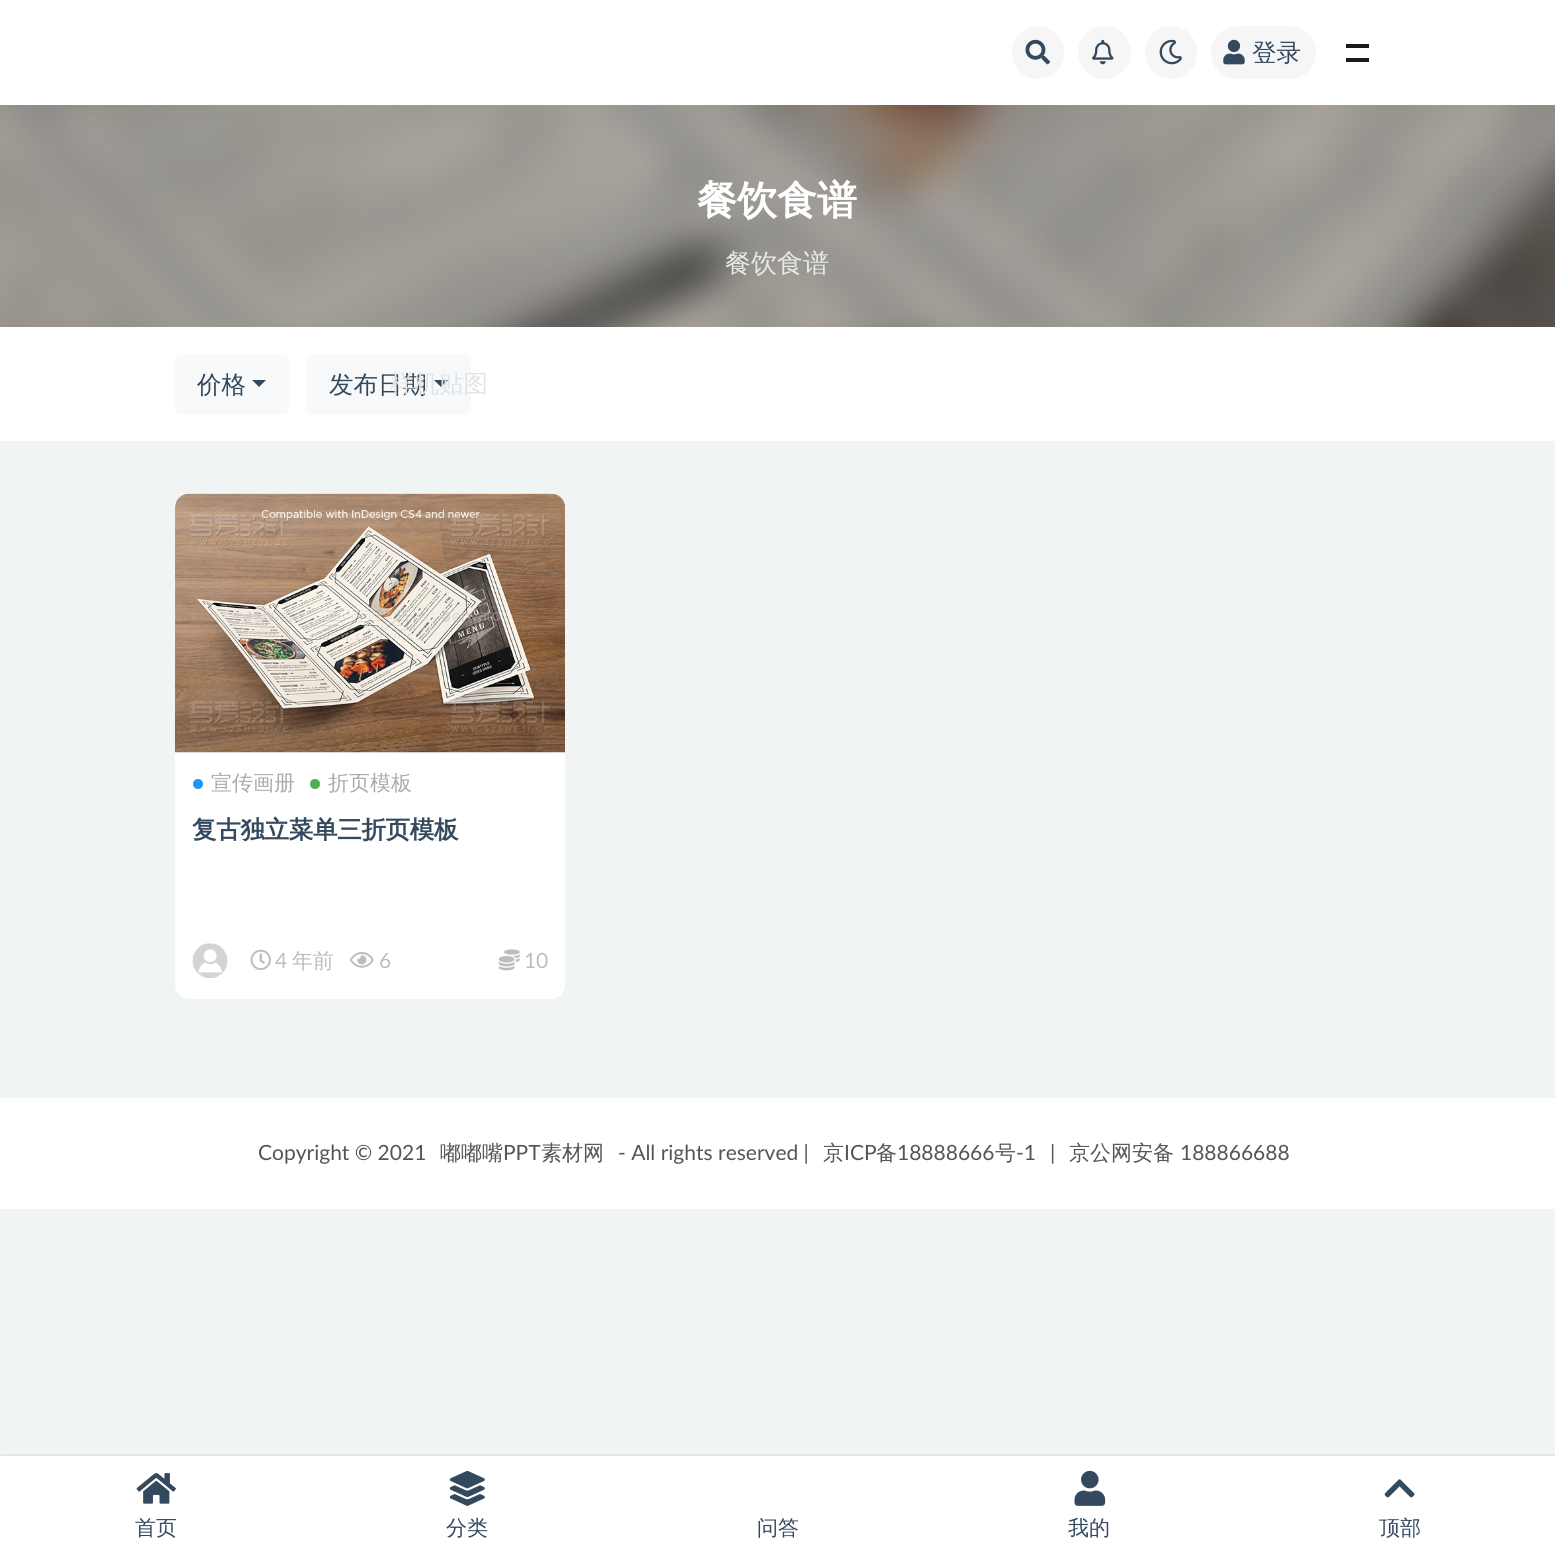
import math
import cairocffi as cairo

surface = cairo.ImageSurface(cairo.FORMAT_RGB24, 1555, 1557)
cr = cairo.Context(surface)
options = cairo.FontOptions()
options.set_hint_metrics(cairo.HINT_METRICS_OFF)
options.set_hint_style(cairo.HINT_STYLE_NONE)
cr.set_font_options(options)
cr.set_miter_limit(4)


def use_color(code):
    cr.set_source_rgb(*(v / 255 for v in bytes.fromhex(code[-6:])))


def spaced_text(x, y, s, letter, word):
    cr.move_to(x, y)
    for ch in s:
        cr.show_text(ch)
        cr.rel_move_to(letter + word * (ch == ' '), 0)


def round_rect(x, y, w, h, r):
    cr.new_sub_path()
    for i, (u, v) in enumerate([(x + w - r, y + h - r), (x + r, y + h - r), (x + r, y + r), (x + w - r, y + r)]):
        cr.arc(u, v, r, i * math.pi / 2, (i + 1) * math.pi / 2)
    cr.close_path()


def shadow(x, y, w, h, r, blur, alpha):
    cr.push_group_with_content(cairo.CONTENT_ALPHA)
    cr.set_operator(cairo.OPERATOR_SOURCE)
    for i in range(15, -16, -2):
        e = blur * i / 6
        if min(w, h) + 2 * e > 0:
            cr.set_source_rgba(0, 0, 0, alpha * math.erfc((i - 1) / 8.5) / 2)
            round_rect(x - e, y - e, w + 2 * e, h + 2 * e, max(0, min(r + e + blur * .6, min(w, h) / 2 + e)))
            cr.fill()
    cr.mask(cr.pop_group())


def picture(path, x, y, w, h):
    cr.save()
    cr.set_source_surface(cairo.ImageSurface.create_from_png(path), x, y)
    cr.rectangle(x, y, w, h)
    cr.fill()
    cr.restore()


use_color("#f0f4f5")
cr.paint()
picture("img5.png", 0, 105, 1555, 222)
use_color("#000000")
shadow(0, 0, 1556, 105, 0, 26, 0.07)
shadow(-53, 68, 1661, 322, 0, 17.5, 0.3)
use_color("#ffffff")
cr.rectangle(0, 0, 1555, 105)
cr.fill()
use_color("#f6f6f6")
round_rect(1012, 26, 52, 53, 26)
cr.fill()
picture("img1.png", 1025, 39, 25, 26)
cr.arc(1104.5, 52.5, 26.5, 0, 2 * math.pi)
cr.fill()
picture("img2.png", 1092, 39, 22, 26)
round_rect(1145, 26, 52, 53, 26)
cr.fill()
picture("img3.png", 1159, 39, 23, 26)
round_rect(1211, 26, 105, 53, 26.5)
cr.fill()
picture("img4.png", 1223, 39, 22, 26)
cr.select_font_face("WenQuanYi Zen Hei Medium")
cr.set_font_size(24.5)
use_color("#34495e")
cr.move_to(1252, 61)
cr.show_text("登录")
use_color("#1a1a1a")
cr.rectangle(1346, 44, 23, 4)
cr.fill()
cr.rectangle(1346, 58, 23, 4)
cr.fill()
cr.select_font_face("WenQuanYi Zen Hei", cairo.FONT_SLANT_NORMAL, cairo.FONT_WEIGHT_BOLD)
cr.set_font_size(40)
use_color("#ffffff")
cr.move_to(697, 214)
cr.show_text("餐饮食谱")
cr.select_font_face("WenQuanYi Zen Hei Medium")
cr.set_font_size(26)
use_color("#e8e8e8")
cr.move_to(725, 272)
cr.show_text("餐饮食谱")
use_color("#ffffff")
cr.rectangle(0, 327, 1555, 114)
cr.fill()
use_color("#f8f9fa")
round_rect(175, 354, 114, 61, 7)
cr.fill()
cr.set_font_size(24.5)
use_color("#34495e")
cr.move_to(197, 393)
cr.show_text("价格")
cr.new_path()
cr.move_to(252, 380)
cr.line_to(266, 380)
cr.line_to(259, 387)
cr.close_path()
cr.fill()
use_color("#f8f9fa")
round_rect(306, 354, 165, 61, 7)
cr.fill()
use_color("#34495e")
cr.move_to(329, 393)
cr.show_text("发布日期")
cr.new_path()
cr.move_to(434, 380)
cr.line_to(448, 380)
cr.line_to(441, 387)
cr.close_path()
cr.fill()
use_color("#ffffff")
round_rect(175, 494, 390, 505, 14)
cr.fill()
picture("img6.png", 175, 493, 390, 260)
use_color("#2196f3")
cr.arc(198, 784, 5, 0, 2 * math.pi)
cr.fill()
cr.set_font_size(21)
use_color("#aaaaaa")
cr.move_to(211, 790)
cr.show_text("宣传画册")
use_color("#4caf50")
cr.new_path()
cr.arc(315, 784, 5, 0, 2 * math.pi)
cr.fill()
use_color("#aaaaaa")
cr.move_to(328, 790)
cr.show_text("折页模板")
cr.select_font_face("WenQuanYi Zen Hei", cairo.FONT_SLANT_NORMAL, cairo.FONT_WEIGHT_BOLD)
cr.set_font_size(24.5)
use_color("#34495e")
spaced_text(192, 838, "复古独立菜单三折页模板", -0.3, 0)
picture("img7.png", 192, 943, 36, 35)
picture("img8.png", 250, 949, 21, 21)
cr.select_font_face("Lato")
cr.set_font_size(21)
use_color("#bdbdbd")
spaced_text(275, 968, "4", -0.3, 0)
cr.select_font_face("WenQuanYi Zen Hei Medium")
spaced_text(292, 968, "年前", -0.3, 0)
picture("img9.png", 350, 952, 24, 16)
cr.select_font_face("Lato")
spaced_text(379, 968, "6", -0.3, 0)
picture("img10.png", 498, 949, 22, 22)
spaced_text(524, 968, "10", -0.3, 0)
use_color("#ffffff")
cr.rectangle(0, 1098, 1555, 111)
cr.fill()
use_color("#555555")
cr.move_to(258, 1160)
cr.show_text("Copyright © 2021")
cr.select_font_face("WenQuanYi Zen Hei Medium")
cr.move_to(440, 1160)
cr.show_text("嘟嘟嘴")
cr.select_font_face("Lato")
cr.move_to(503, 1160)
cr.show_text("PPT")
cr.select_font_face("WenQuanYi Zen Hei Medium")
cr.move_to(541, 1160)
cr.show_text("素材网")
cr.select_font_face("Lato")
cr.move_to(618, 1160)
cr.show_text("- All rights reserved |")
cr.select_font_face("WenQuanYi Zen Hei Medium")
cr.move_to(823, 1160)
cr.show_text("京")
cr.select_font_face("Lato")
cr.move_to(844, 1160)
cr.show_text("ICP")
cr.select_font_face("WenQuanYi Zen Hei Medium")
cr.move_to(876, 1160)
cr.show_text("备")
cr.select_font_face("Lato")
cr.move_to(897, 1160)
cr.show_text("18888666")
cr.select_font_face("WenQuanYi Zen Hei Medium")
cr.move_to(995, 1160)
cr.show_text("号")
cr.select_font_face("Lato")
cr.move_to(1016, 1160)
cr.show_text("-1")
cr.move_to(1050, 1160)
cr.show_text("|")
cr.select_font_face("WenQuanYi Zen Hei Medium")
cr.move_to(1069, 1160)
cr.show_text("京公网安备")
cr.select_font_face("Lato")
cr.move_to(1180, 1160)
cr.show_text("188866688")
cr.select_font_face("WenQuanYi Zen Hei Medium")
cr.set_font_size(24.5)
use_color("#e1e4e7")
cr.move_to(390, 392)
cr.show_text("样机贴图")
use_color("#ffffff")
cr.rectangle(0, 1454, 1555, 103)
cr.fill()
use_color("#e6e6e6")
round_rect(0, 1454, 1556, 2, 1)
cr.fill()
picture("img11.png", 136, 1473, 40, 31)
cr.set_font_size(21)
use_color("#34495e")
cr.move_to(135, 1535)
cr.show_text("首页")
picture("img12.png", 449, 1470, 36, 36)
cr.move_to(446, 1535)
cr.show_text("分类")
cr.move_to(757, 1535)
cr.show_text("问答")
picture("img13.png", 1074, 1470, 32, 36)
cr.move_to(1068, 1535)
cr.show_text("我的")
picture("img14.png", 1384, 1479, 31, 19)
cr.move_to(1379, 1535)
cr.show_text("顶部")
surface.write_to_png("result.png")
